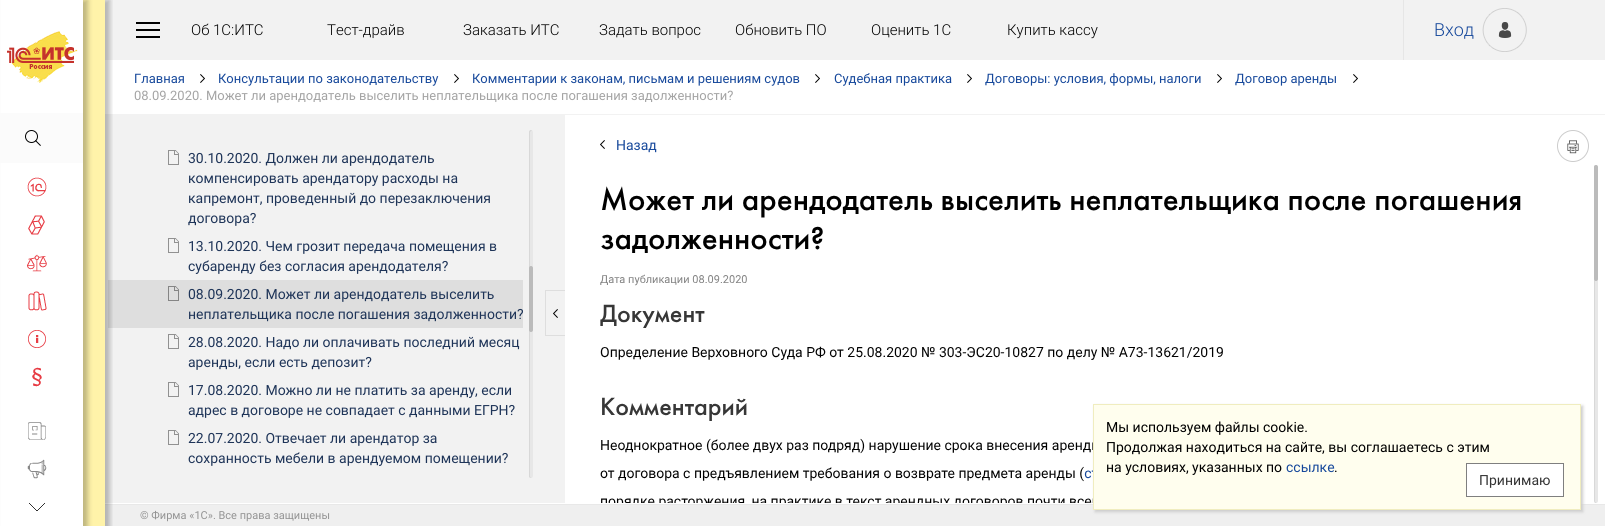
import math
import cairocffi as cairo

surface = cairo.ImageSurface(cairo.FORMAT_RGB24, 1605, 526)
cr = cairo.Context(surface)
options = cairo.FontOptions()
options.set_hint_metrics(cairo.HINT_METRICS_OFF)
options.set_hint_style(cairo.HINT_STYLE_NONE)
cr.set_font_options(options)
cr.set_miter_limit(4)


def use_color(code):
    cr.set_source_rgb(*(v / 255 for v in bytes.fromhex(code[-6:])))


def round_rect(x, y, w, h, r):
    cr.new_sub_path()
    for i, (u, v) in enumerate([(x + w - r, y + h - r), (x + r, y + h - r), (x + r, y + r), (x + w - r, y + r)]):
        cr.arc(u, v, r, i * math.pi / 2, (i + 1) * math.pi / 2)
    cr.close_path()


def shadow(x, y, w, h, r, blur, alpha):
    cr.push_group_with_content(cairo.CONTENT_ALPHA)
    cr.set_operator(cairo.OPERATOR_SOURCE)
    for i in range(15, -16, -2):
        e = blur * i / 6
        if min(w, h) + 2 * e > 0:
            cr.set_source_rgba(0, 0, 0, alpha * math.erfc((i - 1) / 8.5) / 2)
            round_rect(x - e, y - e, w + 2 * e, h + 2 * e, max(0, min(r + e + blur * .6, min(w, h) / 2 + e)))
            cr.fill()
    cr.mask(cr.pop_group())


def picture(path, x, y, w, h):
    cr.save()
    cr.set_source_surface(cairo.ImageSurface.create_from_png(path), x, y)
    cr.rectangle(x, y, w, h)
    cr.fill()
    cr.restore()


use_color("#ffffff")
cr.paint()
use_color("#fff3a9")
cr.rectangle(83, 0, 22, 526)
cr.fill()
use_color("#000000")
shadow(5, 0, 83, 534, 0, 2.5, 0.25)
use_color("#ffffff")
cr.rectangle(1, 0, 82, 526)
cr.fill()
picture("img1.png", 27, 177, 20, 20)
picture("img2.png", 28, 215, 17, 20)
picture("img3.png", 27, 254, 20, 18)
picture("img4.png", 28, 291, 19, 20)
picture("img5.png", 28, 330, 18, 18)
picture("img6.png", 32, 367, 10, 20)
use_color("#f2f2f2")
cr.rectangle(105, 0, 1500, 60)
cr.fill()
cr.rectangle(105, 114, 1500, 1)
cr.fill()
cr.rectangle(105, 115, 460, 388)
cr.fill()
use_color("#dedede")
cr.rectangle(108, 280, 415, 48)
cr.fill()
use_color("#efefef")
cr.rectangle(105, 505, 1500, 21)
cr.fill()
use_color("#e8e8e8")
cr.rectangle(105, 504, 1500, 1)
cr.fill()
cr.save()
cr.rectangle(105, 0, 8, 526)
cr.clip()
use_color("#000000")
shadow(92, 0, 18, 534, 0, 2.5, 0.25)
cr.restore()
picture("img7.png", 28, 422, 18, 18)
picture("img8.png", 27, 459, 20, 20)
picture("img9.png", 7, 31, 71, 52)
use_color("#fbfbfb")
cr.rectangle(0, 113, 83, 50)
cr.fill()
picture("img10.png", 25, 130, 16, 16)
picture("img11.png", 29, 503, 16, 8)
picture("img12.png", 136, 22, 24, 16)
cr.select_font_face("Roboto Light")
cr.set_font_size(15)
use_color("#000000")
cr.move_to(191, 35)
cr.show_text("Об 1С:ИТС")
cr.move_to(327, 35)
cr.show_text("Тест-драйв")
cr.move_to(463, 35)
cr.show_text("Заказать ИТС")
cr.move_to(599, 35)
cr.show_text("Задать вопрос")
cr.move_to(735, 35)
cr.show_text("Обновить ПО")
cr.move_to(871, 35)
cr.show_text("Оценить 1С")
cr.move_to(1007, 35)
cr.show_text("Купить кассу")
use_color("#e6e6e6")
cr.rectangle(1403, 0, 1, 60)
cr.fill()
cr.set_font_size(18)
use_color("#16489b")
cr.move_to(1434, 36)
cr.show_text("Вход")
picture("img13.png", 1482, 8, 45, 44)
cr.select_font_face("Roboto")
cr.set_font_size(13)
cr.move_to(134, 83)
cr.show_text("Главная")
picture("img14.png", 200, 74, 5, 9)
cr.move_to(218, 83)
cr.show_text("Консультации по законодательству")
picture("img14.png", 454, 74, 5, 9)
cr.move_to(472, 83)
cr.show_text("Комментарии к законам, письмам и решениям судов")
picture("img14.png", 815, 74, 5, 9)
cr.move_to(834, 83)
cr.show_text("Судебная практика")
picture("img14.png", 967, 74, 5, 9)
cr.move_to(985, 83)
cr.show_text("Договоры: условия, формы, налоги")
picture("img14.png", 1217, 74, 5, 9)
cr.move_to(1235, 83)
cr.show_text("Договор аренды")
picture("img14.png", 1353, 74, 5, 9)
use_color("#a4a4a4")
cr.move_to(134, 100)
cr.show_text("08.09.2020. Может ли арендодатель выселить неплательщика после погашения задолженности?")
picture("img15.png", 600, 140, 5, 9)
cr.set_font_size(14)
use_color("#16489b")
cr.move_to(616, 150)
cr.show_text("Назад")
picture("img16.png", 1567, 140, 12, 14)
cr.arc(1573, 146, 15.5, 0, 2 * math.pi)
use_color("#cccccc")
cr.set_line_width(1)
cr.stroke()
picture("img17.png", 600, 186, 921, 317)
use_color("#e7e7e7")
round_rect(1594, 165, 4, 338, 2)
cr.fill()
use_color("#d8d8d8")
cr.new_path()
cr.move_to(1596, 165)
cr.curve_to(1595, 165, 1594, 166, 1594, 167)
cr.line_to(1594, 501)
cr.line_to(1595, 503)
cr.line_to(1597, 503)
cr.curve_to(1596, 503, 1595, 502, 1595, 501)
cr.line_to(1595, 167)
cr.curve_to(1595, 166, 1596, 165, 1597, 165)
cr.close_path()
cr.fill()
use_color("#bbbbbb")
round_rect(1594, 165, 4, 116, 2)
cr.fill()
picture("img18.png", 168, 150, 11, 15)
use_color("#1e3458")
cr.move_to(188, 163)
cr.show_text("30.10.2020. Должен ли арендодатель")
cr.move_to(188, 183)
cr.show_text("компенсировать арендатору расходы на")
cr.move_to(188, 203)
cr.show_text("капремонт, проведенный до перезаключения")
cr.move_to(188, 223)
cr.show_text("договора?")
picture("img18.png", 168, 238, 11, 15)
cr.move_to(188, 251)
cr.show_text("13.10.2020. Чем грозит передача помещения в")
cr.move_to(188, 271)
cr.show_text("субаренду без согласия арендодателя?")
picture("img19.png", 168, 286, 11, 15)
cr.move_to(188, 299)
cr.show_text("08.09.2020. Может ли арендодатель выселить")
cr.move_to(188, 319)
cr.show_text("неплательщика после погашения задолженности?")
picture("img18.png", 168, 334, 11, 15)
cr.move_to(188, 347)
cr.show_text("28.08.2020. Надо ли оплачивать последний месяц")
cr.move_to(188, 367)
cr.show_text("аренды, если есть депозит?")
picture("img18.png", 168, 382, 11, 15)
cr.move_to(188, 395)
cr.show_text("17.08.2020. Можно ли не платить за аренду, если")
cr.move_to(188, 415)
cr.show_text("адрес в договоре не совпадает с данными ЕГРН?")
picture("img18.png", 168, 430, 11, 15)
cr.move_to(188, 443)
cr.show_text("22.07.2020. Отвечает ли арендатор за")
cr.move_to(188, 463)
cr.show_text("сохранность мебели в арендуемом помещении?")
use_color("#f2f2f2")
cr.rectangle(523, 311, 1, 1)
cr.fill()
use_color("#e7e7e7")
round_rect(529, 130, 4, 348, 2)
cr.fill()
use_color("#d8d8d8")
cr.new_path()
cr.move_to(531, 130)
cr.curve_to(530, 130, 529, 131, 529, 132)
cr.line_to(529, 477)
cr.curve_to(530, 478, 531, 478, 532, 478)
cr.curve_to(531, 478, 530, 477, 530, 476)
cr.line_to(530, 132)
cr.line_to(532, 130)
cr.close_path()
cr.fill()
use_color("#bbbbbb")
round_rect(529, 266, 4, 66, 2)
cr.fill()
use_color("#dedede")
cr.rectangle(545, 290, 20, 1)
cr.fill()
cr.rectangle(545, 335, 20, 1)
cr.fill()
cr.rectangle(545, 290, 1, 46)
cr.fill()
picture("img20.png", 553, 309, 5, 9)
use_color("#cccccc")
shadow(1095, 406, 488, 106, 0, 1.5, 1)
use_color("#fffeee")
cr.rectangle(1093.5, 404.5, 487, 105)
cr.fill_preserve()
use_color("#f0edbf")
cr.stroke()
use_color("#000000")
cr.move_to(1106, 432)
cr.show_text("Мы используем файлы cookie.")
cr.move_to(1106, 452)
cr.show_text("Продолжая находиться на сайте, вы соглашаетесь с этим")
cr.move_to(1106, 472)
cr.show_text("на условиях, указанных по")
use_color("#16489b")
cr.move_to(1286, 472)
cr.show_text("ссылке")
use_color("#000000")
cr.move_to(1334, 472)
cr.show_text(".")
use_color("#ffffff")
cr.rectangle(1466.5, 463.5, 97, 33)
cr.fill_preserve()
use_color("#7f7f7f")
cr.stroke()
use_color("#333333")
cr.move_to(1479, 485)
cr.show_text("Принимаю")
cr.set_font_size(11)
use_color("#939393")
cr.move_to(140, 519)
cr.show_text("© Фирма «1С». Все права защищены")
surface.write_to_png("result.png")
